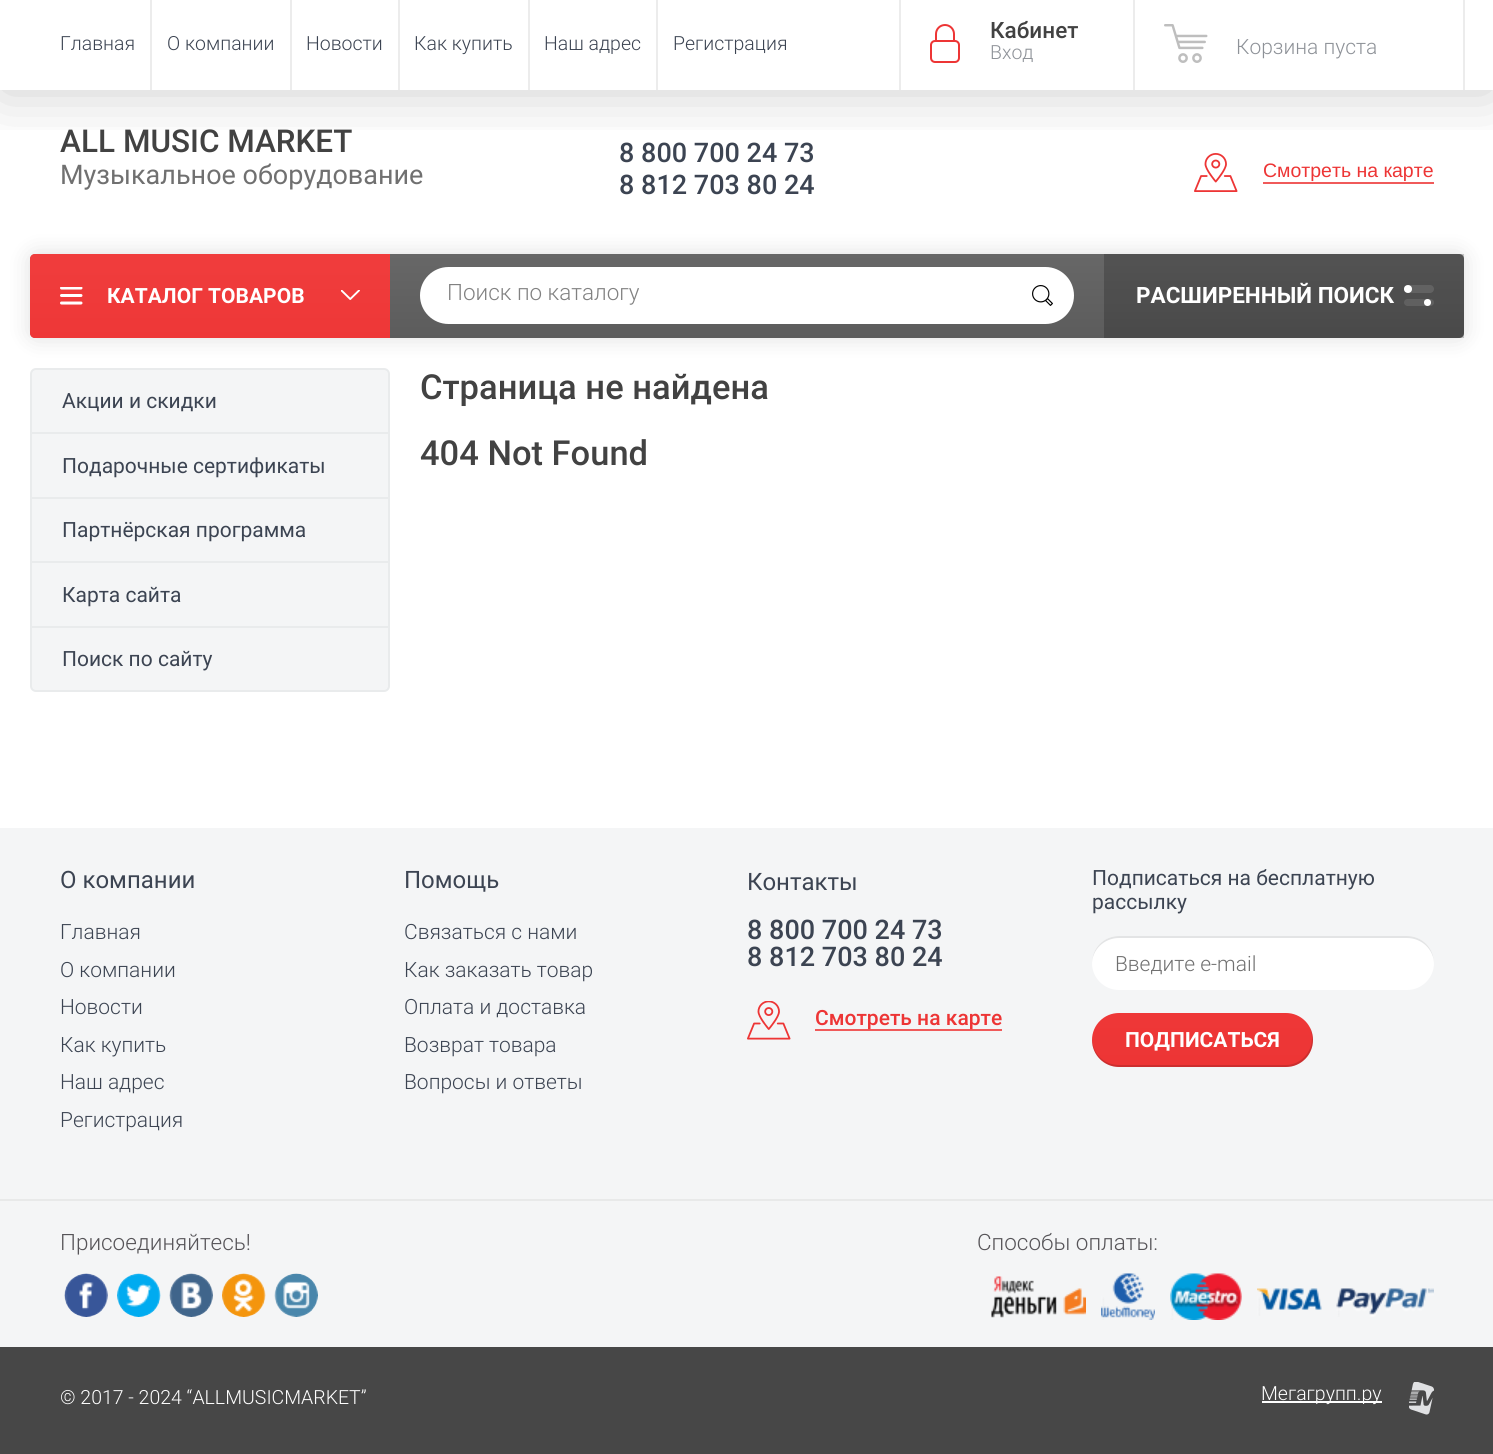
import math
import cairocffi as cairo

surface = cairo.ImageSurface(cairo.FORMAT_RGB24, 1493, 1454)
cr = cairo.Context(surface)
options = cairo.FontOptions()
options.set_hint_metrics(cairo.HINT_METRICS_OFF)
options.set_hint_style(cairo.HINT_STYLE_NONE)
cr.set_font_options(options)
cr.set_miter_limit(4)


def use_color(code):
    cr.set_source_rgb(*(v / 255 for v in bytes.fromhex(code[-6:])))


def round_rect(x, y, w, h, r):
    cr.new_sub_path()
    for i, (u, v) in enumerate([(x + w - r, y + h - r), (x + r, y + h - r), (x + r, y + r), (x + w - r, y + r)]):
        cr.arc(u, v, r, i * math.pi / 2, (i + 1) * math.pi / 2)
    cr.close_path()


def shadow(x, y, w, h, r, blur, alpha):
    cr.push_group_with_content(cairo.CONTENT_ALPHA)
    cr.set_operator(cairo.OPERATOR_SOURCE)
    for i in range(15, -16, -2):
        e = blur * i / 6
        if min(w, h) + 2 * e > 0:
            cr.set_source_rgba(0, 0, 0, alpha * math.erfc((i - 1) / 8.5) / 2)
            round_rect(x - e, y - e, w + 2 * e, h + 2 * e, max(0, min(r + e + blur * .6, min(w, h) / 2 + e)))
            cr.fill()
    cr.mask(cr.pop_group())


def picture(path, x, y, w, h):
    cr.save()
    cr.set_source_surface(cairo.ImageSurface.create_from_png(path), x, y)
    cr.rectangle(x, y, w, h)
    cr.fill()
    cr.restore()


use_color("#ffffff")
cr.paint()
picture("img3.png", 1194, 153, 44, 39)
use_color("#f05a5a")
cr.rectangle(1263, 182, 171, 2)
cr.fill()
cr.save()
cr.rectangle(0, 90, 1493, 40)
cr.clip()
use_color("#000000")
shadow(0, 2, 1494, 90, 0, 30, 0.2)
cr.restore()
cr.select_font_face("Roboto Light")
cr.set_font_size(19.5)
use_color("#3c4452")
cr.move_to(60, 50)
cr.show_text("Главная")
use_color("#ececec")
cr.rectangle(150, 0, 2, 90)
cr.fill()
use_color("#3c4452")
cr.move_to(167, 50)
cr.show_text("О компании")
use_color("#ececec")
cr.rectangle(290, 0, 2, 90)
cr.fill()
use_color("#3c4452")
cr.move_to(306, 50)
cr.show_text("Новости")
use_color("#ececec")
cr.rectangle(398, 0, 2, 90)
cr.fill()
use_color("#3c4452")
cr.move_to(414, 50)
cr.show_text("Как купить")
use_color("#ececec")
cr.rectangle(528, 0, 2, 90)
cr.fill()
use_color("#3c4452")
cr.move_to(544, 50)
cr.show_text("Наш адрес")
use_color("#ececec")
cr.rectangle(656, 0, 2, 90)
cr.fill()
use_color("#3c4452")
cr.move_to(673, 50)
cr.show_text("Регистрация")
use_color("#ececec")
cr.rectangle(899, 0, 2, 90)
cr.fill()
cr.rectangle(1133, 0, 2, 90)
cr.fill()
picture("img1.png", 930, 24, 30, 39)
cr.select_font_face("Roboto Medium")
cr.set_font_size(22.5)
use_color("#424242")
cr.move_to(990, 38)
cr.show_text("Кабинет")
cr.select_font_face("Roboto Light")
cr.set_font_size(19.5)
use_color("#8e9298")
cr.move_to(990, 59)
cr.show_text("Вход")
use_color("#ececec")
cr.rectangle(1463, 0, 2, 90)
cr.fill()
picture("img2.png", 1164, 24, 44, 39)
cr.set_font_size(21)
use_color("#8e9298")
cr.move_to(1236, 54)
cr.show_text("Корзина пуста")
cr.select_font_face("Roboto Medium")
cr.set_font_size(31.5)
use_color("#424242")
cr.move_to(60, 152)
cr.show_text("ALL MUSIC MARKET")
cr.select_font_face("Roboto")
cr.set_font_size(27)
use_color("#707070")
cr.move_to(60, 184)
cr.show_text("Музыкальное оборудование")
cr.select_font_face("Roboto Medium")
use_color("#3c4452")
cr.move_to(619, 162)
cr.show_text("8 800 700 24 73")
cr.move_to(619, 194)
cr.show_text("8 812 703 80 24")
cr.select_font_face("Liberation Sans")
cr.set_font_size(19.5)
use_color("#ed3535")
cr.move_to(1263, 177)
cr.show_text("Смотреть на карте")
use_color("#000000")
shadow(30, 254, 1434, 84, 6, 11, 0.13)
gradient = cairo.LinearGradient(747, 338, 747, 254)
gradient.add_color_stop_rgba(0, 0.361, 0.361, 0.361, 1)
gradient.add_color_stop_rgba(1, 0.404, 0.404, 0.404, 1)
cr.set_source(gradient)
cr.new_path()
cr.move_to(36, 254)
cr.line_to(1459, 254)
cr.curve_to(1462, 254, 1464, 256, 1464, 259)
cr.line_to(1464, 333)
cr.curve_to(1464, 336, 1462, 338, 1459, 338)
cr.line_to(36, 338)
cr.curve_to(32.5, 338, 30, 335.5, 30, 332)
cr.line_to(30, 260)
cr.curve_to(30, 256.5, 32.5, 254, 36, 254)
cr.close_path()
cr.fill()
gradient = cairo.LinearGradient(210, 338, 210, 254)
gradient.add_color_stop_rgba(0, 0.933, 0.216, 0.216, 1)
gradient.add_color_stop_rgba(1, 0.941, 0.239, 0.239, 1)
cr.set_source(gradient)
cr.new_path()
cr.move_to(35, 254)
cr.line_to(390, 254)
cr.line_to(390, 338)
cr.line_to(35, 338)
cr.curve_to(32, 338, 30, 336, 30, 333)
cr.line_to(30, 259)
cr.curve_to(30, 256, 32, 254, 35, 254)
cr.close_path()
cr.fill()
picture("img4.png", 60, 287, 23, 18)
cr.select_font_face("Roboto", cairo.FONT_SLANT_NORMAL, cairo.FONT_WEIGHT_BOLD)
cr.set_font_size(21)
use_color("#ffffff")
cr.move_to(107, 303)
cr.show_text("КАТАЛОГ ТОВАРОВ")
picture("img5.png", 341, 290, 19, 10)
round_rect(420, 267, 654, 57, 28.5)
cr.fill()
cr.select_font_face("Roboto Light")
cr.set_font_size(22.5)
use_color("#818181")
cr.move_to(447, 300)
cr.show_text("Поиск по каталогу")
picture("img6.png", 1032, 285, 21, 21)
cr.set_source_rgba(0, 0, 0, 0.2)
cr.rectangle(1104, 254, 360, 84)
cr.fill()
cr.select_font_face("Roboto", cairo.FONT_SLANT_NORMAL, cairo.FONT_WEIGHT_BOLD)
use_color("#ffffff")
cr.move_to(1136, 303)
cr.show_text("РАСШИРЕННЫЙ ПОИСК")
use_color("#626262")
round_rect(1404, 285, 30, 8, 4)
cr.fill()
use_color("#ffffff")
cr.arc(1408, 289, 4, 0, 2 * math.pi)
cr.fill()
use_color("#606060")
round_rect(1404, 299, 30, 7, 3.5)
cr.fill()
use_color("#ffffff")
cr.arc(1427.5, 302.5, 3.5, 0, 2 * math.pi)
cr.fill()
use_color("#f4f5f6")
round_rect(31, 369, 358, 322, 5)
cr.fill_preserve()
use_color("#e9ebec")
cr.stroke()
cr.rectangle(32, 432, 357, 2)
cr.fill()
cr.select_font_face("Roboto")
cr.set_font_size(21)
use_color("#3c4452")
cr.move_to(62, 408)
cr.show_text("Акции и скидки")
use_color("#e9ebec")
cr.rectangle(32, 497, 357, 2)
cr.fill()
use_color("#3c4452")
cr.move_to(62, 473)
cr.show_text("Подарочные сертификаты")
use_color("#e9ebec")
cr.rectangle(32, 561, 357, 2)
cr.fill()
use_color("#3c4452")
cr.move_to(62, 537)
cr.show_text("Партнёрская программа")
use_color("#e9ebec")
cr.rectangle(32, 626, 357, 2)
cr.fill()
use_color("#3c4452")
cr.move_to(62, 602)
cr.show_text("Карта сайта")
cr.move_to(62, 666)
cr.show_text("Поиск по сайту")
cr.select_font_face("Roboto Medium")
cr.set_font_size(34.5)
use_color("#424242")
cr.move_to(420, 399)
cr.show_text("Страница не найдена")
cr.move_to(420, 465)
cr.show_text("404 Not Found")
use_color("#f4f5f6")
cr.rectangle(0, 828, 1493, 519)
cr.fill()
cr.select_font_face("Roboto")
cr.set_font_size(24)
use_color("#3c4452")
cr.move_to(60, 888)
cr.show_text("О компании")
cr.select_font_face("Roboto Light")
cr.set_font_size(21)
cr.move_to(60, 939)
cr.show_text("Главная")
cr.move_to(60, 977)
cr.show_text("О компании")
cr.move_to(60, 1014)
cr.show_text("Новости")
cr.move_to(60, 1052)
cr.show_text("Как купить")
cr.move_to(60, 1089)
cr.show_text("Наш адрес")
cr.move_to(60, 1127)
cr.show_text("Регистрация")
cr.select_font_face("Roboto")
cr.set_font_size(24)
cr.move_to(404, 888)
cr.show_text("Помощь")
cr.select_font_face("Roboto Light")
cr.set_font_size(21)
cr.move_to(404, 939)
cr.show_text("Связаться с нами")
cr.move_to(404, 977)
cr.show_text("Как заказать товар")
cr.move_to(404, 1014)
cr.show_text("Оплата и доставка")
cr.move_to(404, 1052)
cr.show_text("Возврат товара")
cr.move_to(404, 1089)
cr.show_text("Вопросы и ответы")
cr.select_font_face("Roboto")
cr.set_font_size(24)
cr.move_to(747, 890)
cr.show_text("Контакты")
cr.select_font_face("Roboto Medium")
cr.set_font_size(27)
cr.move_to(747, 939)
cr.show_text("8 800 700 24 73")
cr.move_to(747, 966)
cr.show_text("8 812 703 80 24")
picture("img7.png", 747, 1001, 44, 39)
use_color("#f05a5a")
cr.rectangle(815, 1029, 187, 2)
cr.fill()
cr.set_font_size(21)
use_color("#ed3535")
cr.move_to(815, 1025)
cr.show_text("Смотреть на карте")
cr.select_font_face("Roboto")
use_color("#3c4452")
cr.move_to(1092, 885)
cr.show_text("Подписаться на бесплатную")
cr.move_to(1092, 909)
cr.show_text("рассылку")
use_color("#ffffff")
round_rect(1092, 936, 342, 54, 27)
cr.fill()
use_color("#e3e4e5")
cr.new_path()
cr.move_to(1119, 938)
cr.line_to(1407, 938)
cr.curve_to(1422, 938, 1434, 950, 1434, 964)
cr.line_to(1434, 963)
cr.curve_to(1434, 948, 1422, 936, 1407, 936)
cr.line_to(1119, 936)
cr.curve_to(1104, 936, 1092, 948, 1092, 963)
cr.line_to(1092, 964)
cr.curve_to(1092, 950, 1104, 938, 1119, 938)
cr.close_path()
cr.fill()
cr.select_font_face("Roboto Light")
use_color("#707070")
cr.move_to(1115, 971)
cr.show_text("Введите e-mail")
gradient = cairo.LinearGradient(1202, 1067, 1202, 1013)
gradient.add_color_stop_rgba(0, 0.929, 0.208, 0.208, 1)
gradient.add_color_stop_rgba(1, 0.933, 0.216, 0.216, 1)
cr.set_source(gradient)
round_rect(1092, 1013, 221, 54, 27)
cr.fill()
cr.set_source_rgba(0, 0, 0, 0.14)
cr.new_path()
cr.move_to(1092, 1039)
cr.line_to(1092, 1040)
cr.curve_to(1092, 1055, 1104, 1067, 1119, 1067)
cr.line_to(1286, 1067)
cr.curve_to(1301, 1067, 1313, 1055, 1313, 1040)
cr.curve_to(1313, 1035, 1312, 1031, 1310, 1027)
cr.curve_to(1311, 1031, 1312, 1034, 1312, 1038)
cr.curve_to(1312, 1053, 1300, 1065, 1286, 1065)
cr.line_to(1119, 1065)
cr.curve_to(1104, 1065, 1093, 1054, 1092, 1039)
cr.close_path()
cr.fill()
cr.select_font_face("Roboto", cairo.FONT_SLANT_NORMAL, cairo.FONT_WEIGHT_BOLD)
use_color("#ffffff")
cr.move_to(1125, 1047)
cr.show_text("ПОДПИСАТЬСЯ")
use_color("#e8e9e9")
cr.rectangle(0, 1199, 1493, 2)
cr.fill()
cr.select_font_face("Roboto Light")
cr.set_font_size(22.5)
use_color("#565458")
cr.move_to(60, 1250)
cr.show_text("Присоединяйтесь!")
picture("img8.png", 64, 1273, 44, 44)
picture("img9.png", 117, 1273, 44, 44)
picture("img10.png", 169, 1273, 44, 44)
picture("img11.png", 222, 1273, 44, 44)
picture("img12.png", 274, 1273, 44, 44)
cr.move_to(977, 1250)
cr.show_text("Способы оплаты:")
picture("img13.png", 991, 1276, 95, 42)
picture("img14.png", 1101, 1273, 54, 47)
picture("img15.png", 1170, 1273, 72, 47)
picture("img16.png", 1257, 1288, 65, 28)
picture("img17.png", 1336, 1288, 98, 29)
use_color("#474747")
cr.rectangle(0, 1347, 1493, 107)
cr.fill()
cr.set_font_size(19.5)
use_color("#ffffff")
cr.move_to(60, 1404)
cr.show_text("© 2017 - 2024 “ALLMUSICMARKET”")
picture("img18.png", 1409, 1382, 25, 33)
cr.rectangle(1262, 1401, 120, 2)
cr.fill()
cr.move_to(1261, 1400)
cr.show_text("Мегагрупп.ру")
surface.write_to_png("result.png")
